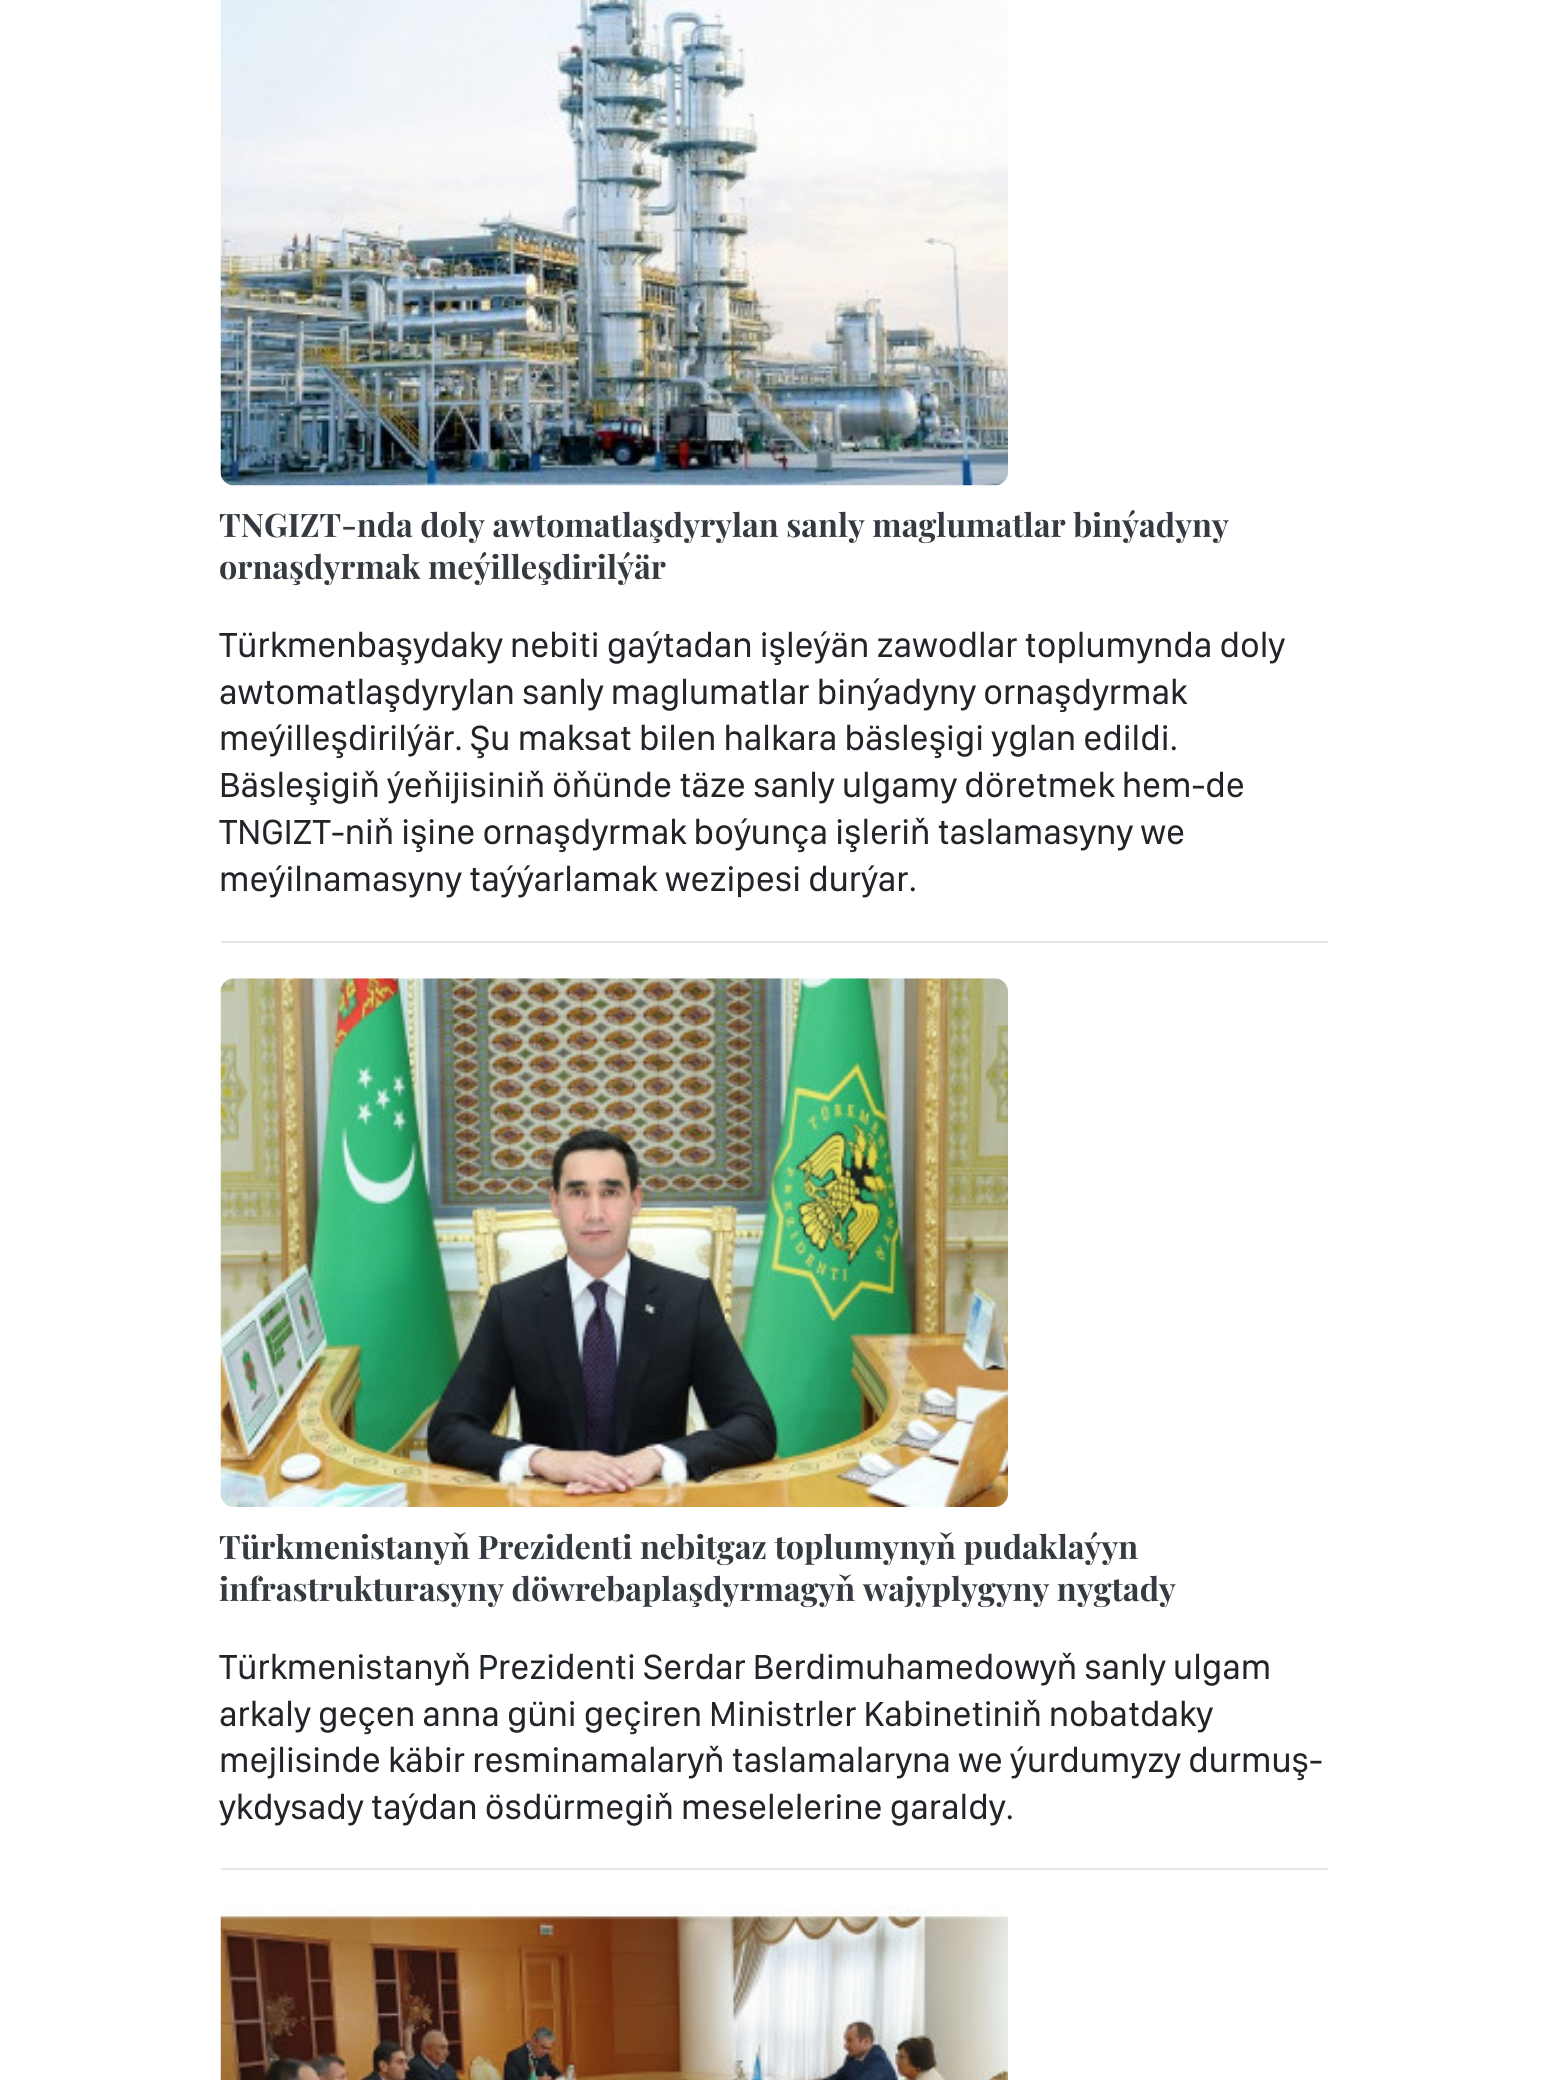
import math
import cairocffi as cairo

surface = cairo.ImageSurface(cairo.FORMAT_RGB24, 1545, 2080)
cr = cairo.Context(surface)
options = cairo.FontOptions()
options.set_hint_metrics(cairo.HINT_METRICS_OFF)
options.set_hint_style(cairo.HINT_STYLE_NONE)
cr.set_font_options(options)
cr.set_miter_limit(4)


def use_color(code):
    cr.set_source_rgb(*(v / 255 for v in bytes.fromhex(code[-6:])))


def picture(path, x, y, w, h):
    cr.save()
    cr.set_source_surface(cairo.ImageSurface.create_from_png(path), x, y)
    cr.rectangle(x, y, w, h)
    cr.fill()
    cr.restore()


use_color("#ffffff")
cr.paint()
picture("img1.png", 220, 0, 788, 486)
cr.select_font_face("Playfair Display", cairo.FONT_SLANT_NORMAL, cairo.FONT_WEIGHT_BOLD)
cr.set_font_size(32.4)
use_color("#343a40")
cr.move_to(219, 537)
cr.show_text("TNGIZT-nda doly awtomatlaşdyrylan sanly maglumatlar binýadyny")
cr.move_to(219, 579)
cr.show_text("ornaşdyrmak meýilleşdirilýär")
cr.select_font_face("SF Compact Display")
cr.set_font_size(36)
use_color("#212529")
cr.move_to(219, 657)
cr.show_text("Türkmenbaşydaky nebiti gaýtadan işleýän zawodlar toplumynda doly")
cr.move_to(219, 704)
cr.show_text("awtomatlaşdyrylan sanly maglumatlar binýadyny ornaşdyrmak")
cr.move_to(219, 750)
cr.show_text("meýilleşdirilýär. Şu maksat bilen halkara bäsleşigi yglan edildi.")
cr.move_to(219, 797)
cr.show_text("Bäsleşigiň ýeňijisiniň öňünde täze sanly ulgamy döretmek hem-de")
cr.move_to(219, 844)
cr.show_text("TNGIZT-niň işine ornaşdyrmak boýunça işleriň taslamasyny we")
cr.move_to(219, 891)
cr.show_text("meýilnamasyny taýýarlamak wezipesi durýar.")
use_color("#e6e6e6")
cr.rectangle(221, 941, 1107, 2)
cr.fill()
picture("img2.png", 220, 978, 788, 529)
cr.select_font_face("Playfair Display", cairo.FONT_SLANT_NORMAL, cairo.FONT_WEIGHT_BOLD)
cr.set_font_size(32.4)
use_color("#343a40")
cr.move_to(219, 1559)
cr.show_text("Türkmenistanyň Prezidenti nebitgaz toplumynyň pudaklaýyn")
cr.move_to(219, 1601)
cr.show_text("infrastrukturasyny döwrebaplaşdyrmagyň wajyplygyny nygtady")
cr.select_font_face("SF Compact Display")
cr.set_font_size(36)
use_color("#212529")
cr.move_to(219, 1679)
cr.show_text("Türkmenistanyň Prezidenti Serdar Berdimuhamedowyň sanly ulgam")
cr.move_to(219, 1726)
cr.show_text("arkaly geçen anna güni geçiren Ministrler Kabinetiniň nobatdaky")
cr.move_to(219, 1772)
cr.show_text("mejlisinde käbir resminamalaryň taslamalaryna we ýurdumyzy durmuş-")
cr.move_to(219, 1819)
cr.show_text("ykdysady taýdan ösdürmegiň meselelerine garaldy.")
use_color("#e6e6e6")
cr.rectangle(221, 1868, 1107, 2)
cr.fill()
picture("img3.png", 220, 1905, 788, 175)
surface.write_to_png("result.png")
